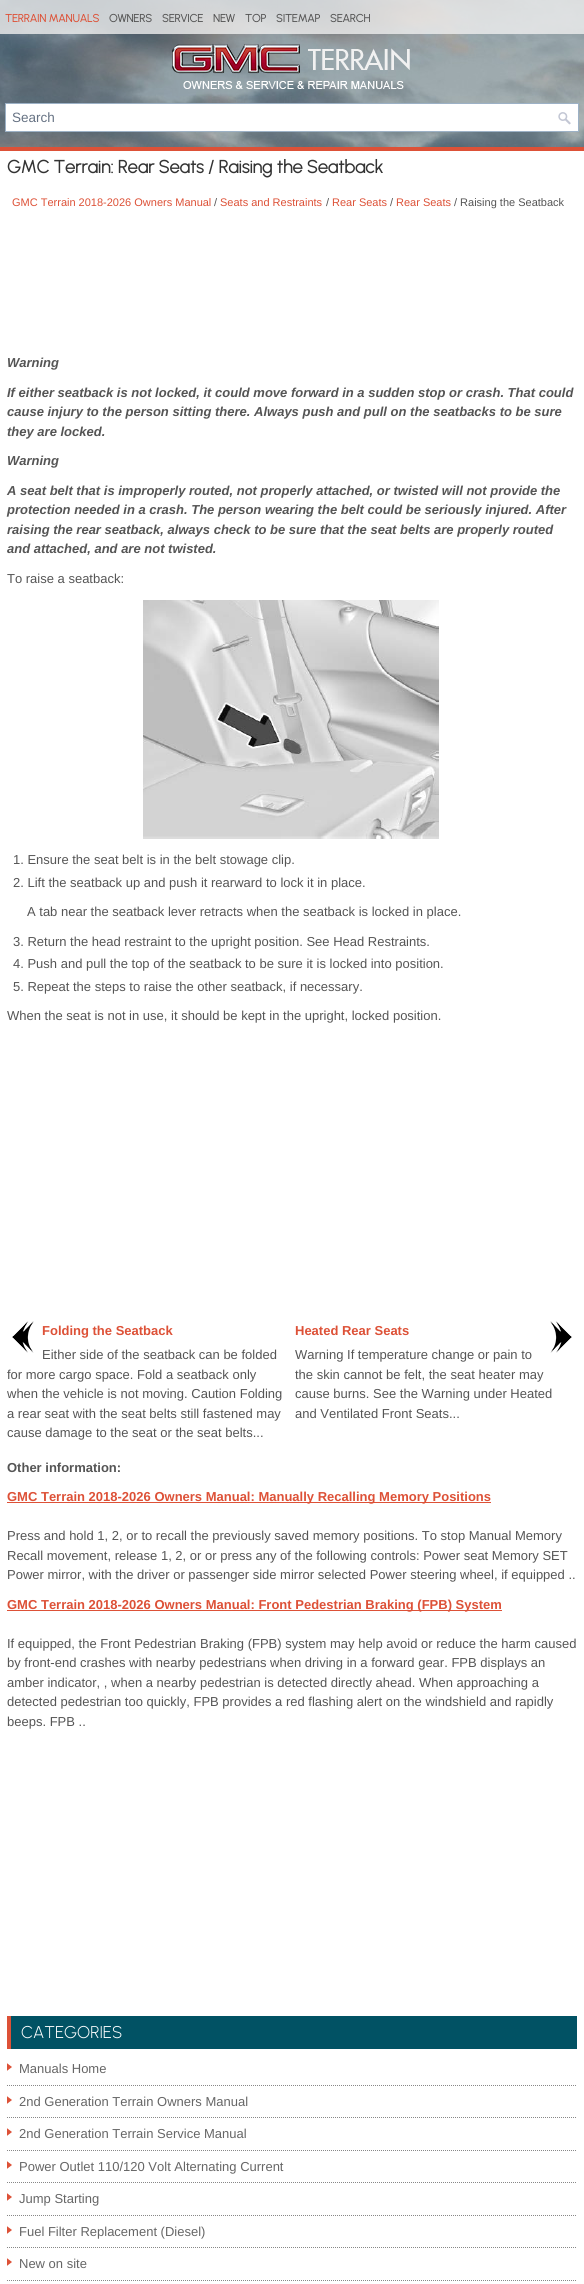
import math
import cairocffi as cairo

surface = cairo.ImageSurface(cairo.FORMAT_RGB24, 584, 2284)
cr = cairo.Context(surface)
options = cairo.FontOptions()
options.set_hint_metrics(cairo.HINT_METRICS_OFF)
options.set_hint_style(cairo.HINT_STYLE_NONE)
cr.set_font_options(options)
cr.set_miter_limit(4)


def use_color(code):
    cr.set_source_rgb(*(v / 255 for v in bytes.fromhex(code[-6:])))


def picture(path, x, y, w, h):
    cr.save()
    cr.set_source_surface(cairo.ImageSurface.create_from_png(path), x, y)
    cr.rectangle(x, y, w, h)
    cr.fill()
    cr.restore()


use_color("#ffffff")
cr.paint()
picture("img1.png", 0, 0, 584, 147)
cr.set_source_rgba(0, 0, 0, 0.2)
cr.rectangle(0, 0, 584, 147)
cr.fill()
cr.set_source_rgba(0.933, 0.933, 0.933, 0.8)
cr.rectangle(0, 0, 584, 34)
cr.fill()
cr.select_font_face("Urbanist", cairo.FONT_SLANT_NORMAL, cairo.FONT_WEIGHT_BOLD)
cr.set_font_size(11)
use_color("#dd5137")
cr.move_to(5, 22)
cr.show_text("TERRAIN MANUALS")
use_color("#555555")
cr.move_to(109, 22)
cr.show_text("OWNERS")
cr.move_to(162, 22)
cr.show_text("SERVICE")
cr.move_to(213, 22)
cr.show_text("NEW")
cr.move_to(245, 22)
cr.show_text("TOP")
cr.move_to(276, 22)
cr.show_text("SITEMAP")
cr.move_to(330, 22)
cr.show_text("SEARCH")
use_color("#dd5137")
cr.rectangle(0, 147, 584, 4)
cr.fill()
picture("img2.png", 172, 44, 238, 45)
use_color("#ffffff")
cr.rectangle(5.5, 103.5, 573, 28)
cr.fill_preserve()
use_color("#9cb1c6")
cr.set_line_width(1)
cr.stroke()
cr.select_font_face("Liberation Sans")
cr.set_font_size(13.5)
use_color("#667283")
cr.move_to(12, 122)
cr.show_text("Search")
picture("img3.png", 558, 112, 13, 13)
cr.select_font_face("Urbanist", cairo.FONT_SLANT_NORMAL, cairo.FONT_WEIGHT_BOLD)
cr.set_font_size(18)
use_color("#333333")
cr.move_to(7, 173)
cr.show_text("GMC Terrain: Rear Seats / Raising the Seatback")
cr.select_font_face("Liberation Sans")
cr.set_font_size(11)
use_color("#dd5137")
cr.move_to(12, 206)
cr.show_text("GMC Terrain 2018-2026 Owners Manual")
use_color("#555555")
cr.move_to(214, 206)
cr.show_text("/")
use_color("#dd5137")
cr.move_to(220, 206)
cr.show_text("Seats and Restraints")
use_color("#555555")
cr.move_to(326, 206)
cr.show_text("/")
use_color("#dd5137")
cr.move_to(332, 206)
cr.show_text("Rear Seats")
use_color("#555555")
cr.move_to(390, 206)
cr.show_text("/")
use_color("#dd5137")
cr.move_to(396, 206)
cr.show_text("Rear Seats")
use_color("#555555")
cr.move_to(454, 206)
cr.show_text("/ Raising the Seatback")
cr.select_font_face("Liberation Sans", cairo.FONT_SLANT_ITALIC, cairo.FONT_WEIGHT_BOLD)
cr.set_font_size(13)
cr.move_to(7, 367)
cr.show_text("Warning")
cr.move_to(7, 397)
cr.show_text("If either seatback is not locked, it could move forward in a sudden stop or crash. That could")
cr.move_to(7, 416)
cr.show_text("cause injury to the person sitting there. Always push and pull on the seatbacks to be sure")
cr.move_to(7, 436)
cr.show_text("they are locked.")
cr.move_to(7, 465)
cr.show_text("Warning")
cr.move_to(7, 495)
cr.show_text("A seat belt that is improperly routed, not properly attached, or twisted will not provide the")
cr.move_to(7, 514)
cr.show_text("protection needed in a crash. The person wearing the belt could be seriously injured. After")
cr.move_to(7, 534)
cr.show_text("raising the rear seatback, always check to be sure that the seat belts are properly routed")
cr.move_to(7, 553)
cr.show_text("and attached, and are not twisted.")
cr.select_font_face("Liberation Sans")
cr.move_to(7, 583)
cr.show_text("To raise a seatback:")
picture("img4.png", 143, 600, 296, 239)
cr.move_to(13, 864)
cr.show_text("1. Ensure the seat belt is in the belt stowage clip.")
cr.move_to(13, 887)
cr.show_text("2. Lift the seatback up and push it rearward to lock it in place.")
cr.move_to(27, 916)
cr.show_text("A tab near the seatback lever retracts when the seatback is locked in place.")
cr.move_to(13, 946)
cr.show_text("3. Return the head restraint to the upright position. See Head Restraints.")
cr.move_to(13, 968)
cr.show_text("4. Push and pull the top of the seatback to be sure it is locked into position.")
cr.move_to(13, 991)
cr.show_text("5. Repeat the steps to raise the other seatback, if necessary.")
cr.move_to(7, 1020)
cr.show_text("When the seat is not in use, it should be kept in the upright, locked position.")
picture("img5.png", 12, 1321, 22, 32)
cr.select_font_face("Liberation Sans", cairo.FONT_SLANT_NORMAL, cairo.FONT_WEIGHT_BOLD)
use_color("#dd5137")
cr.move_to(42, 1335)
cr.show_text("Folding the Seatback")
cr.select_font_face("Liberation Sans")
use_color("#555555")
cr.move_to(42, 1359)
cr.show_text("Either side of the seatback can be folded")
cr.move_to(7, 1379)
cr.show_text("for more cargo space. Fold a seatback only")
cr.move_to(7, 1398)
cr.show_text("when the vehicle is not moving. Caution Folding")
cr.move_to(7, 1418)
cr.show_text("a rear seat with the seat belts still fastened may")
cr.move_to(7, 1437)
cr.show_text("cause damage to the seat or the seat belts...")
cr.select_font_face("Liberation Sans", cairo.FONT_SLANT_NORMAL, cairo.FONT_WEIGHT_BOLD)
use_color("#dd5137")
cr.move_to(295, 1335)
cr.show_text("Heated Rear Seats")
picture("img6.png", 550, 1321, 22, 32)
cr.select_font_face("Liberation Sans")
use_color("#555555")
cr.move_to(295, 1359)
cr.show_text("Warning If temperature change or pain to")
cr.move_to(295, 1379)
cr.show_text("the skin cannot be felt, the seat heater may")
cr.move_to(295, 1398)
cr.show_text("cause burns. See the Warning under Heated")
cr.move_to(295, 1418)
cr.show_text("and Ventilated Front Seats...")
cr.select_font_face("Liberation Sans", cairo.FONT_SLANT_NORMAL, cairo.FONT_WEIGHT_BOLD)
cr.move_to(7, 1472)
cr.show_text("Other information:")
use_color("#dd5137")
cr.rectangle(7, 1502, 484, 1)
cr.fill()
cr.move_to(7, 1501)
cr.show_text("GMC Terrain 2018-2026 Owners Manual: Manually Recalling Memory Positions")
cr.select_font_face("Liberation Sans")
use_color("#555555")
cr.move_to(7, 1540)
cr.show_text("Press and hold 1, 2, or to recall the previously saved memory positions. To stop Manual Memory")
cr.move_to(7, 1560)
cr.show_text("Recall movement, release 1, 2, or or press any of the following controls: Power seat Memory SET")
cr.move_to(7, 1579)
cr.show_text("Power mirror, with the driver or passenger side mirror selected Power steering wheel, if equipped ..")
use_color("#dd5137")
cr.rectangle(7, 1610, 495, 1)
cr.fill()
cr.select_font_face("Liberation Sans", cairo.FONT_SLANT_NORMAL, cairo.FONT_WEIGHT_BOLD)
cr.move_to(7, 1609)
cr.show_text("GMC Terrain 2018-2026 Owners Manual: Front Pedestrian Braking (FPB) System")
cr.select_font_face("Liberation Sans")
use_color("#555555")
cr.move_to(7, 1648)
cr.show_text("If equipped, the Front Pedestrian Braking (FPB) system may help avoid or reduce the harm caused")
cr.move_to(7, 1667)
cr.show_text("by front-end crashes with nearby pedestrians when driving in a forward gear. FPB displays an")
cr.move_to(7, 1687)
cr.show_text("amber indicator, , when a nearby pedestrian is detected directly ahead. When approaching a")
cr.move_to(7, 1706)
cr.show_text("detected pedestrian too quickly, FPB provides a red flashing alert on the windshield and rapidly")
cr.move_to(7, 1726)
cr.show_text("beeps. FPB ..")
use_color("#015264")
cr.rectangle(11, 2016, 566, 33)
cr.fill()
use_color("#dd5137")
cr.rectangle(7, 2016, 4, 33)
cr.fill()
cr.select_font_face("Urbanist Light")
cr.set_font_size(17)
use_color("#ffffff")
cr.move_to(21, 2038)
cr.show_text("CATEGORIES")
picture("img7.png", 7, 2063, 5, 8)
cr.new_path()
cr.move_to(7, 2085.5)
cr.line_to(577, 2085.5)
use_color("#888888")
cr.set_dash([1, 1])
cr.stroke()
cr.select_font_face("Liberation Sans")
cr.set_font_size(13)
use_color("#666666")
cr.move_to(19, 2073)
cr.show_text("Manuals Home")
picture("img7.png", 7, 2096, 5, 8)
cr.new_path()
cr.move_to(7, 2117.5)
cr.line_to(577, 2117.5)
use_color("#888888")
cr.stroke()
use_color("#666666")
cr.move_to(19, 2106)
cr.show_text("2nd Generation Terrain Owners Manual")
picture("img7.png", 7, 2128, 5, 8)
cr.new_path()
cr.move_to(7, 2150.5)
cr.line_to(577, 2150.5)
use_color("#888888")
cr.stroke()
use_color("#666666")
cr.move_to(19, 2138)
cr.show_text("2nd Generation Terrain Service Manual")
picture("img7.png", 7, 2161, 5, 8)
cr.new_path()
cr.move_to(7, 2182.5)
cr.line_to(577, 2182.5)
use_color("#888888")
cr.stroke()
use_color("#666666")
cr.move_to(19, 2171)
cr.show_text("Power Outlet 110/120 Volt Alternating Current")
picture("img7.png", 7, 2193, 5, 8)
cr.new_path()
cr.move_to(7, 2215.5)
cr.line_to(577, 2215.5)
use_color("#888888")
cr.stroke()
use_color("#666666")
cr.move_to(19, 2203)
cr.show_text("Jump Starting")
picture("img7.png", 7, 2226, 5, 8)
cr.new_path()
cr.move_to(7, 2247.5)
cr.line_to(577, 2247.5)
use_color("#888888")
cr.stroke()
use_color("#666666")
cr.move_to(19, 2236)
cr.show_text("Fuel Filter Replacement (Diesel)")
picture("img7.png", 7, 2258, 5, 8)
cr.new_path()
cr.move_to(7, 2280.5)
cr.line_to(577, 2280.5)
use_color("#888888")
cr.stroke()
use_color("#666666")
cr.move_to(19, 2268)
cr.show_text("New on site")
surface.write_to_png("result.png")
